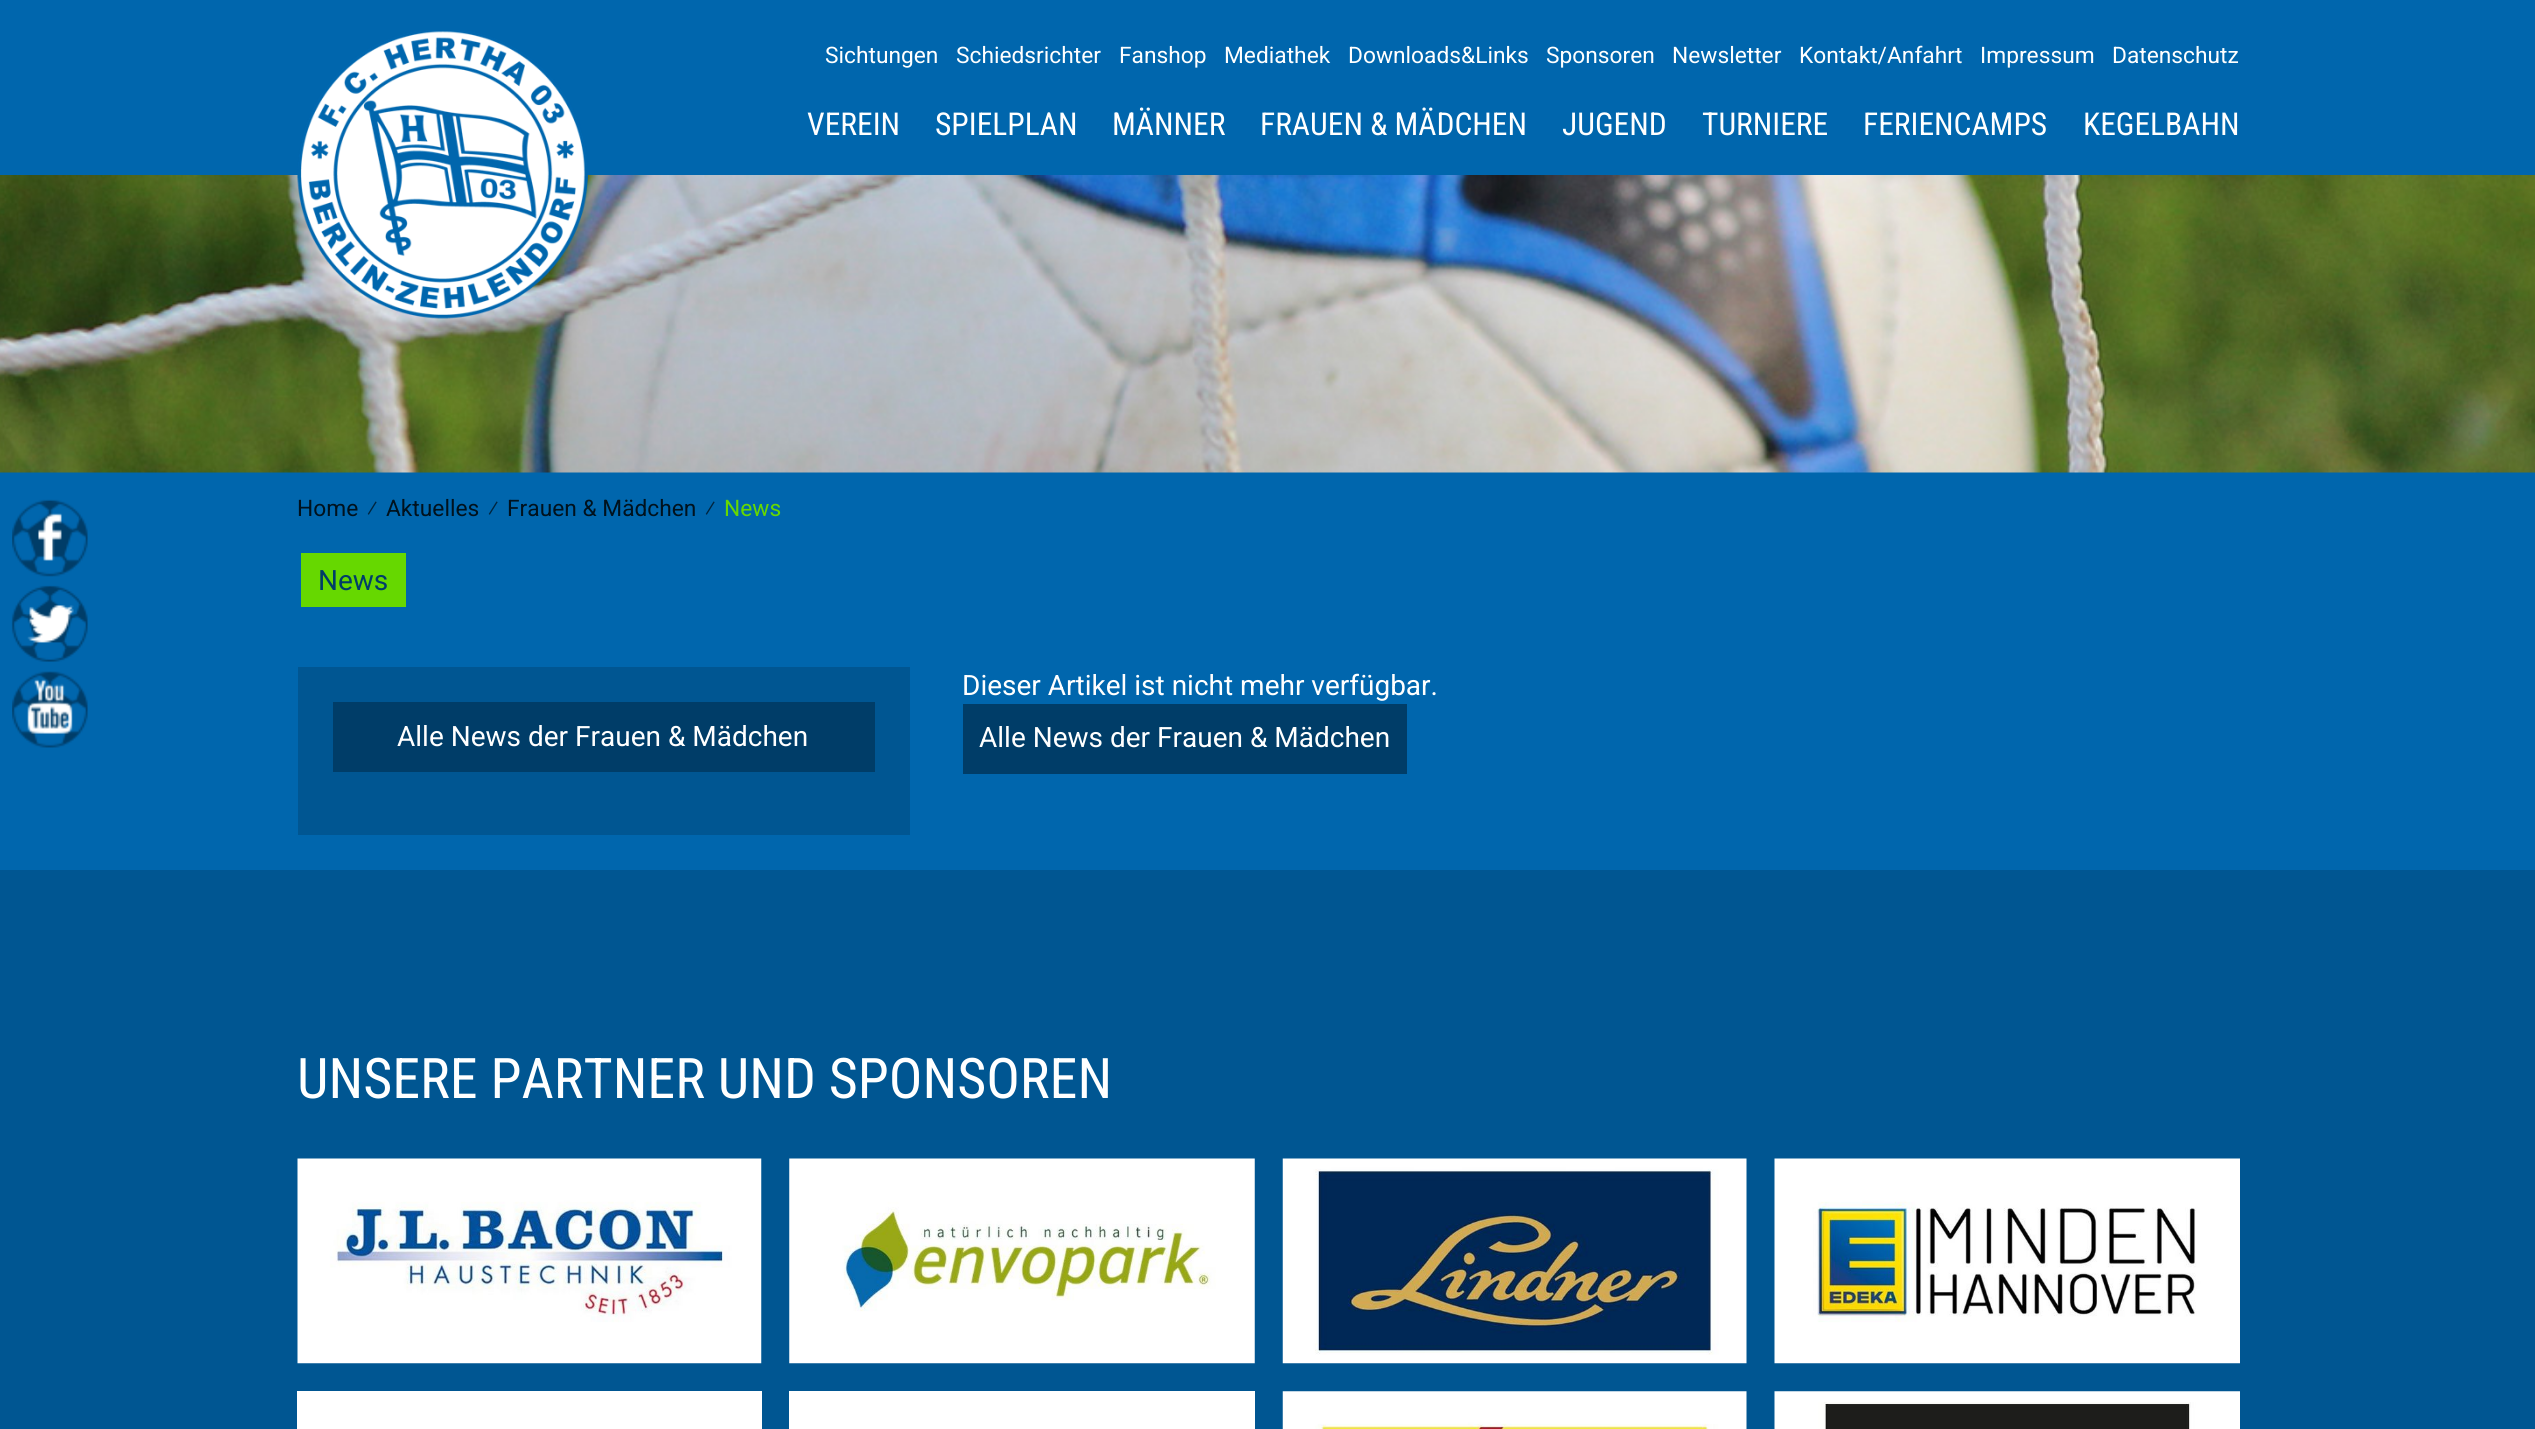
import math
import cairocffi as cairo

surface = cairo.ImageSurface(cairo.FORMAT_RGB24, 2535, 1429)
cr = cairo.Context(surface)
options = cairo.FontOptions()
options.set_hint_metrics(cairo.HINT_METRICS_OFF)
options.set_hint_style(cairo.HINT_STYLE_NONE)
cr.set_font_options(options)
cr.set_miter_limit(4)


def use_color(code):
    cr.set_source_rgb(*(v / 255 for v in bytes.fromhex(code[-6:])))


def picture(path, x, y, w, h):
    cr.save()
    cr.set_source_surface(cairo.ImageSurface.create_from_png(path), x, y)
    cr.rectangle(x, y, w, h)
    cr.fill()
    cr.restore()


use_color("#0066ad")
cr.paint()
picture("img2.png", 0, 175, 2535, 298)
picture("img1.png", 297, 30, 291, 289)
cr.select_font_face("Roboto")
cr.set_font_size(22.75)
use_color("#ffffff")
cr.move_to(825, 63)
cr.show_text("Sichtungen")
cr.move_to(956, 63)
cr.show_text("Schiedsrichter")
cr.move_to(1119, 63)
cr.show_text("Fanshop")
cr.move_to(1224, 63)
cr.show_text("Mediathek")
cr.move_to(1348, 63)
cr.show_text("Downloads&Links")
cr.move_to(1546, 63)
cr.show_text("Sponsoren")
cr.move_to(1672, 63)
cr.show_text("Newsletter")
cr.move_to(1799, 63)
cr.show_text("Kontakt/Anfahrt")
cr.move_to(1980, 63)
cr.show_text("Impressum")
cr.move_to(2112, 63)
cr.show_text("Datenschutz")
cr.select_font_face("Roboto Condensed")
cr.set_font_size(31.5)
cr.move_to(807, 135)
cr.show_text("VEREIN")
cr.move_to(935, 135)
cr.show_text("SPIELPLAN")
cr.move_to(1112, 135)
cr.show_text("MÄNNER")
cr.move_to(1260, 135)
cr.show_text("FRAUEN & MÄDCHEN")
cr.move_to(1562, 135)
cr.show_text("JUGEND")
cr.move_to(1702, 135)
cr.show_text("TURNIERE")
cr.move_to(1863, 135)
cr.show_text("FERIENCAMPS")
cr.move_to(2083, 135)
cr.show_text("KEGELBAHN")
cr.select_font_face("Roboto")
cr.set_font_size(22.75)
use_color("#00121e")
cr.move_to(297, 516)
cr.show_text("Home")
use_color("#00253f")
cr.move_to(367, 516)
cr.show_text("⁄")
use_color("#00121e")
cr.move_to(386, 516)
cr.show_text("Aktuelles")
use_color("#00253f")
cr.move_to(488, 516)
cr.show_text("⁄")
use_color("#00121e")
cr.move_to(507, 516)
cr.show_text("Frauen & Mädchen")
use_color("#00253f")
cr.move_to(705, 516)
cr.show_text("⁄")
use_color("#66d800")
cr.move_to(724, 516)
cr.show_text("News")
cr.rectangle(301, 553, 105, 54)
cr.fill()
cr.set_font_size(28)
use_color("#003d68")
cr.move_to(318, 590)
cr.show_text("News")
picture("img3.png", 12, 499, 76, 78)
picture("img4.png", 11, 585, 77, 77)
picture("img5.png", 12, 671, 76, 77)
use_color("#005692")
cr.rectangle(298, 667, 612, 168)
cr.fill()
use_color("#003d68")
cr.rectangle(333, 702, 542, 70)
cr.fill()
use_color("#ffffff")
cr.move_to(397, 746)
cr.show_text("Alle News der Frauen & Mädchen")
cr.move_to(962, 695)
cr.show_text("Dieser Artikel ist nicht mehr verfügbar.")
use_color("#003d68")
cr.rectangle(963, 704, 444, 70)
cr.fill()
use_color("#ffffff")
cr.move_to(979, 747)
cr.show_text("Alle News der Frauen & Mädchen")
use_color("#005692")
cr.rectangle(0, 870, 2535, 559)
cr.fill()
cr.select_font_face("Roboto Condensed")
cr.set_font_size(56)
use_color("#ffffff")
cr.move_to(297, 1098)
cr.show_text("UNSERE PARTNER UND SPONSOREN")
picture("img6.png", 297, 1158, 465, 206)
picture("img7.png", 789, 1158, 466, 206)
picture("img8.png", 1282, 1158, 465, 206)
picture("img9.png", 1774, 1158, 466, 206)
cr.rectangle(297, 1391, 465, 38)
cr.fill()
cr.rectangle(789, 1391, 466, 38)
cr.fill()
picture("img10.png", 1282, 1391, 465, 38)
picture("img11.png", 1774, 1391, 466, 38)
surface.write_to_png("result.png")
